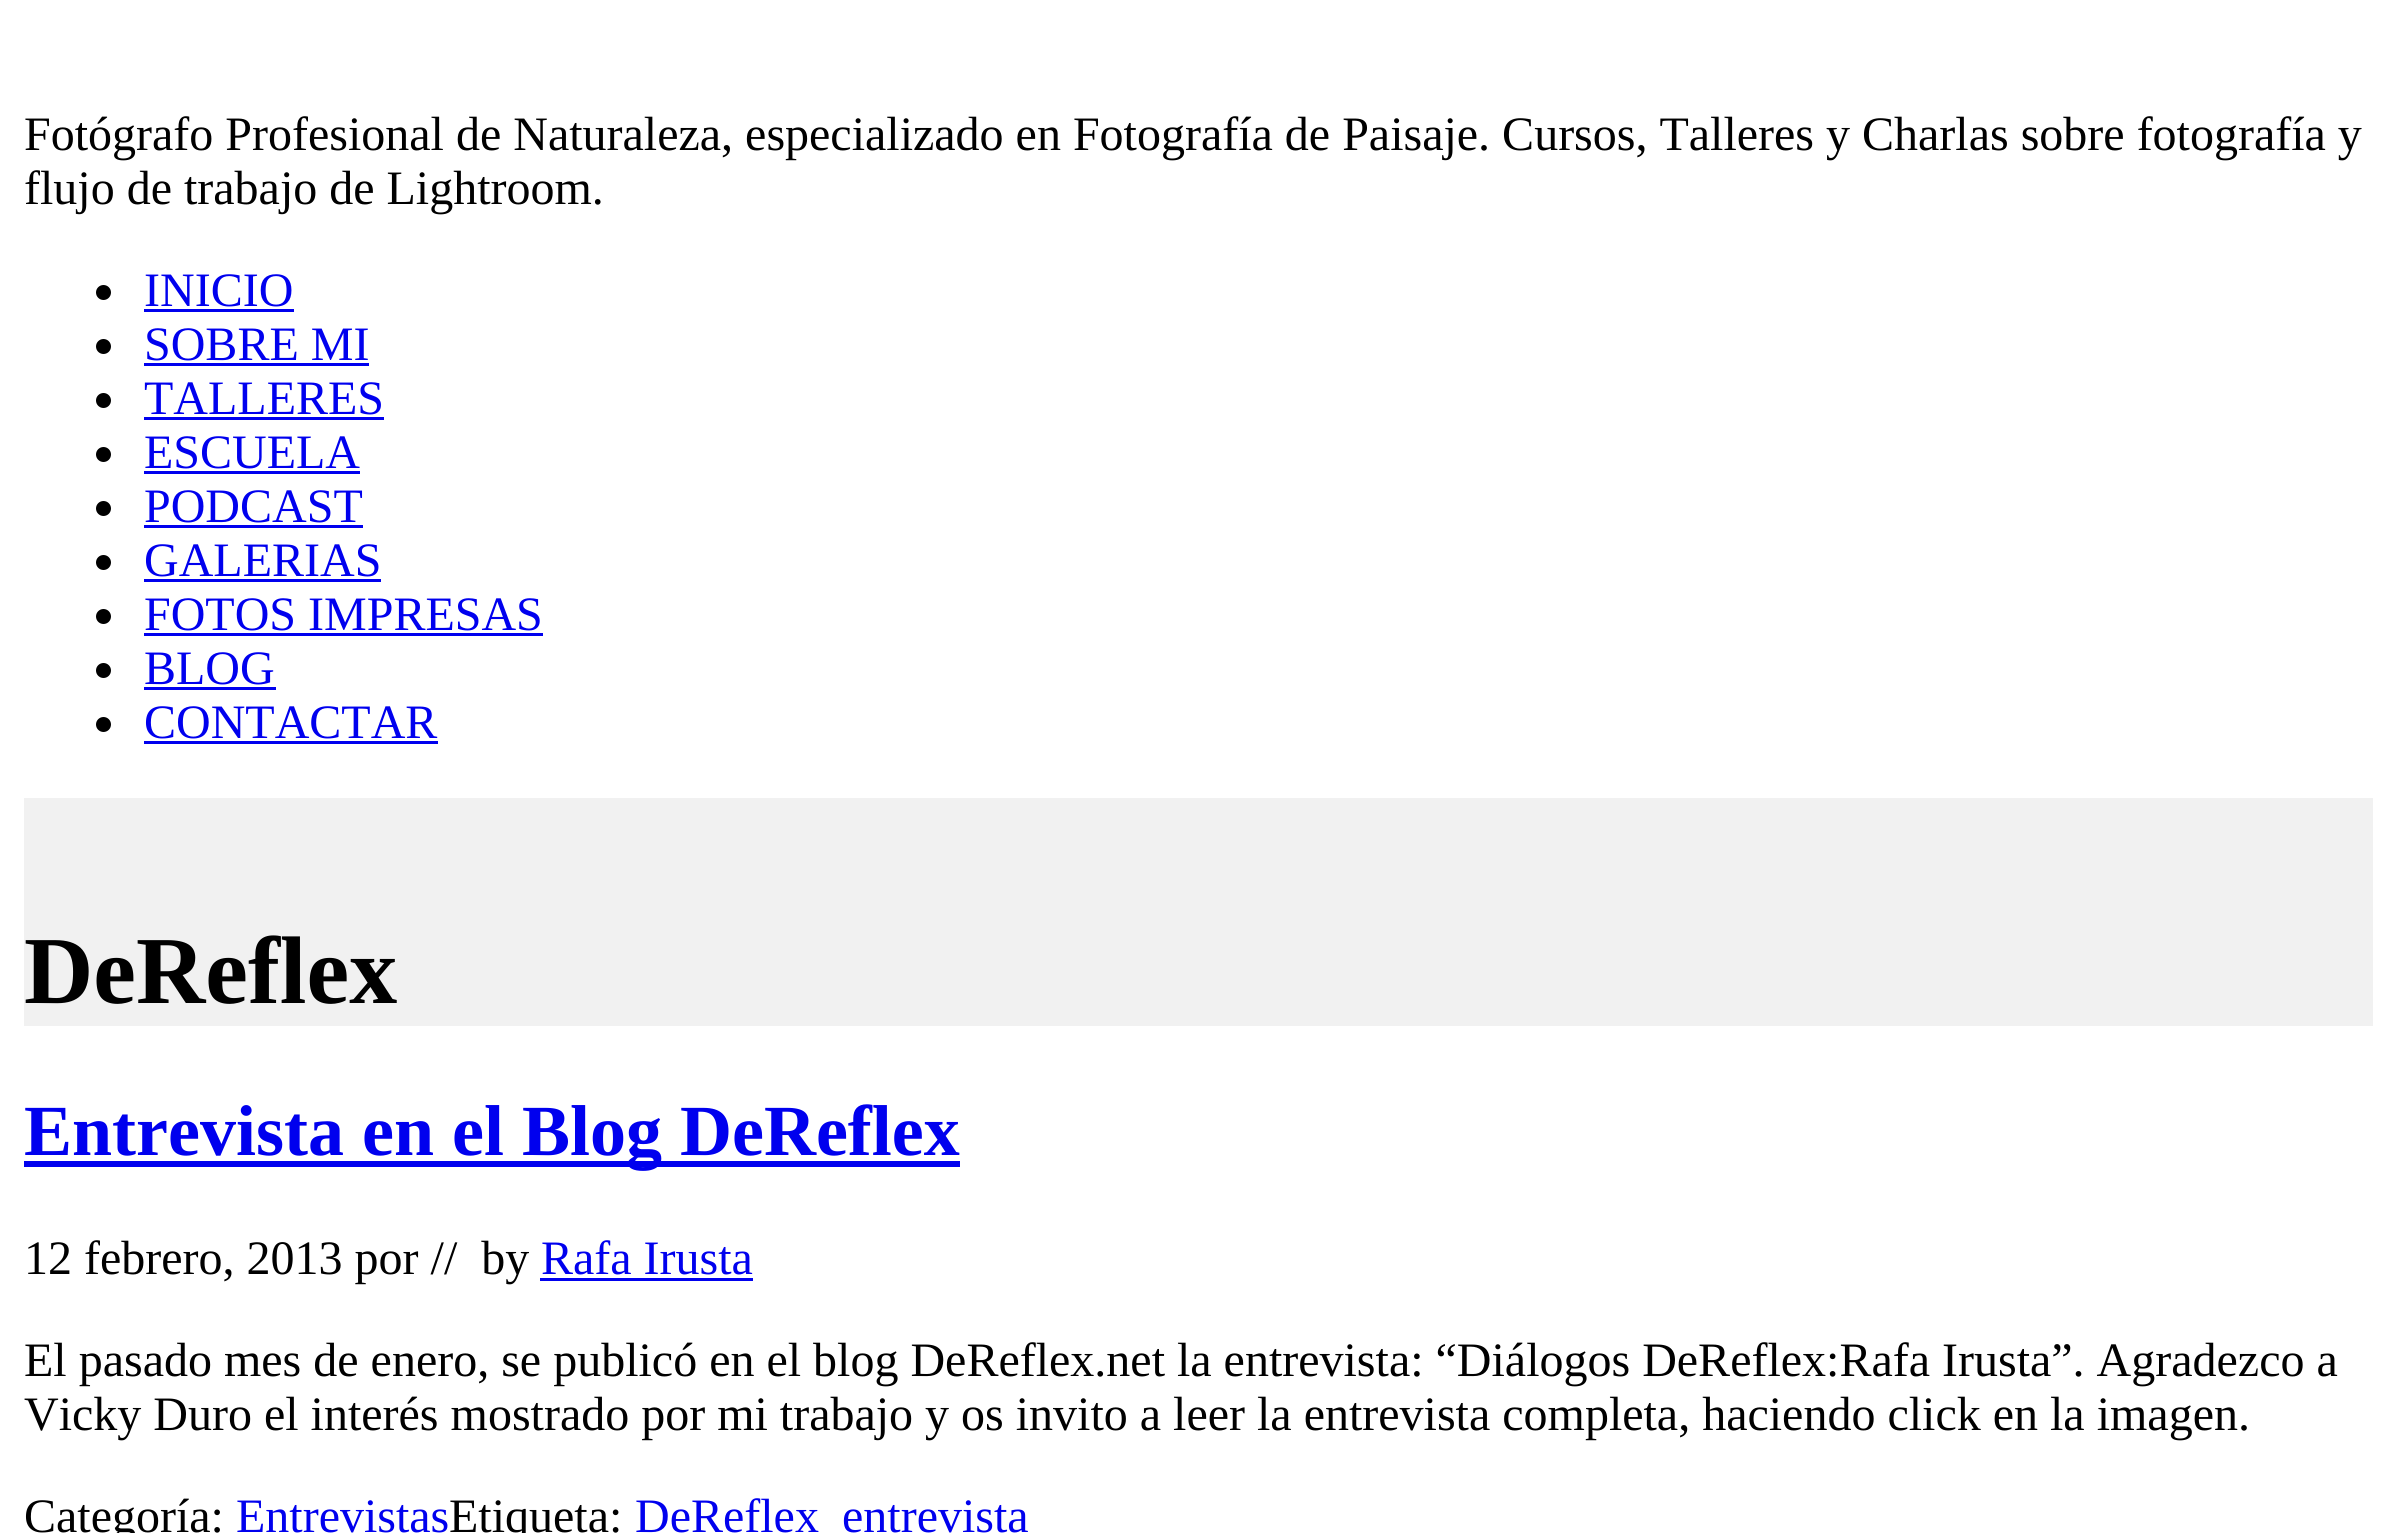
import math
import cairocffi as cairo

surface = cairo.ImageSurface(cairo.FORMAT_RGB24, 2396, 1533)
cr = cairo.Context(surface)
options = cairo.FontOptions()
options.set_hint_metrics(cairo.HINT_METRICS_OFF)
options.set_hint_style(cairo.HINT_STYLE_NONE)
cr.set_font_options(options)
cr.set_miter_limit(4)


def use_color(code):
    cr.set_source_rgb(*(v / 255 for v in bytes.fromhex(code[-6:])))


use_color("#ffffff")
cr.paint()
cr.select_font_face("Liberation Serif")
cr.set_font_size(48)
use_color("#000000")
cr.move_to(24, 150)
cr.show_text("Fotógrafo Profesional de Naturaleza, especializado en Fotografía de Paisaje. Cursos, Talleres y Charlas sobre fotografía y")
cr.move_to(24, 204)
cr.show_text("flujo de trabajo de Lightroom.")
cr.new_path()
cr.arc(103.5, 292.5, 7.5, 0, 2 * math.pi)
cr.fill()
use_color("#0000ee")
cr.move_to(144, 306)
cr.show_text("INICIO")
cr.rectangle(144, 309, 150, 3)
cr.fill()
use_color("#000000")
cr.arc(103.5, 346.5, 7.5, 0, 2 * math.pi)
cr.fill()
use_color("#0000ee")
cr.move_to(144, 360)
cr.show_text("SOBRE MI")
cr.rectangle(144, 363, 225, 3)
cr.fill()
use_color("#000000")
cr.arc(103.5, 400.5, 7.5, 0, 2 * math.pi)
cr.fill()
use_color("#0000ee")
cr.move_to(144, 414)
cr.show_text("TALLERES")
cr.rectangle(144, 417, 240, 3)
cr.fill()
use_color("#000000")
cr.arc(103.5, 454.5, 7.5, 0, 2 * math.pi)
cr.fill()
use_color("#0000ee")
cr.move_to(144, 468)
cr.show_text("ESCUELA")
cr.rectangle(144, 471, 216, 3)
cr.fill()
use_color("#000000")
cr.arc(103.5, 508.5, 7.5, 0, 2 * math.pi)
cr.fill()
use_color("#0000ee")
cr.move_to(144, 522)
cr.show_text("PODCAST")
cr.rectangle(144, 525, 219, 3)
cr.fill()
use_color("#000000")
cr.arc(103.5, 562.5, 7.5, 0, 2 * math.pi)
cr.fill()
use_color("#0000ee")
cr.move_to(144, 576)
cr.show_text("GALERIAS")
cr.rectangle(144, 579, 237, 3)
cr.fill()
use_color("#000000")
cr.arc(103.5, 616.5, 7.5, 0, 2 * math.pi)
cr.fill()
use_color("#0000ee")
cr.move_to(144, 630)
cr.show_text("FOTOS IMPRESAS")
cr.rectangle(144, 633, 399, 3)
cr.fill()
use_color("#000000")
cr.arc(103.5, 670.5, 7.5, 0, 2 * math.pi)
cr.fill()
use_color("#0000ee")
cr.move_to(144, 684)
cr.show_text("BLOG")
cr.rectangle(144, 687, 132, 3)
cr.fill()
use_color("#000000")
cr.arc(103.5, 724.5, 7.5, 0, 2 * math.pi)
cr.fill()
use_color("#0000ee")
cr.move_to(144, 738)
cr.show_text("CONTACTAR")
cr.rectangle(144, 741, 294, 3)
cr.fill()
use_color("#f1f1f1")
cr.rectangle(24, 798, 2349, 228)
cr.fill()
cr.select_font_face("Liberation Serif", cairo.FONT_SLANT_NORMAL, cairo.FONT_WEIGHT_BOLD)
cr.set_font_size(96)
use_color("#000000")
cr.move_to(24, 1003)
cr.show_text("DeReflex")
use_color("#0000ee")
cr.rectangle(24, 1161, 936, 6)
cr.fill()
cr.set_font_size(72)
cr.move_to(24, 1155)
cr.show_text("Entrevista en el Blog DeReflex")
cr.select_font_face("Liberation Serif")
cr.set_font_size(48)
use_color("#000000")
cr.move_to(24, 1274)
cr.show_text("12 febrero, 2013 por //  by")
use_color("#0000ee")
cr.move_to(541, 1274)
cr.show_text("Rafa Irusta")
cr.rectangle(540, 1278, 213, 3)
cr.fill()
use_color("#000000")
cr.move_to(24, 1376)
cr.show_text("El pasado mes de enero, se publicó en el blog DeReflex.net la entrevista: “Diálogos DeReflex:Rafa Irusta”. Agradezco a")
cr.move_to(24, 1430)
cr.show_text("Vicky Duro el interés mostrado por mi trabajo y os invito a leer la entrevista completa, haciendo click en la imagen.")
cr.move_to(24, 1532)
cr.show_text("Categoría:")
use_color("#0000ee")
cr.move_to(236, 1532)
cr.show_text("Entrevistas")
use_color("#000000")
cr.move_to(449, 1532)
cr.show_text("Etiqueta:")
use_color("#0000ee")
cr.move_to(635, 1532)
cr.show_text("DeReflex")
cr.move_to(842, 1532)
cr.show_text("entrevista")
surface.write_to_png("result.png")
